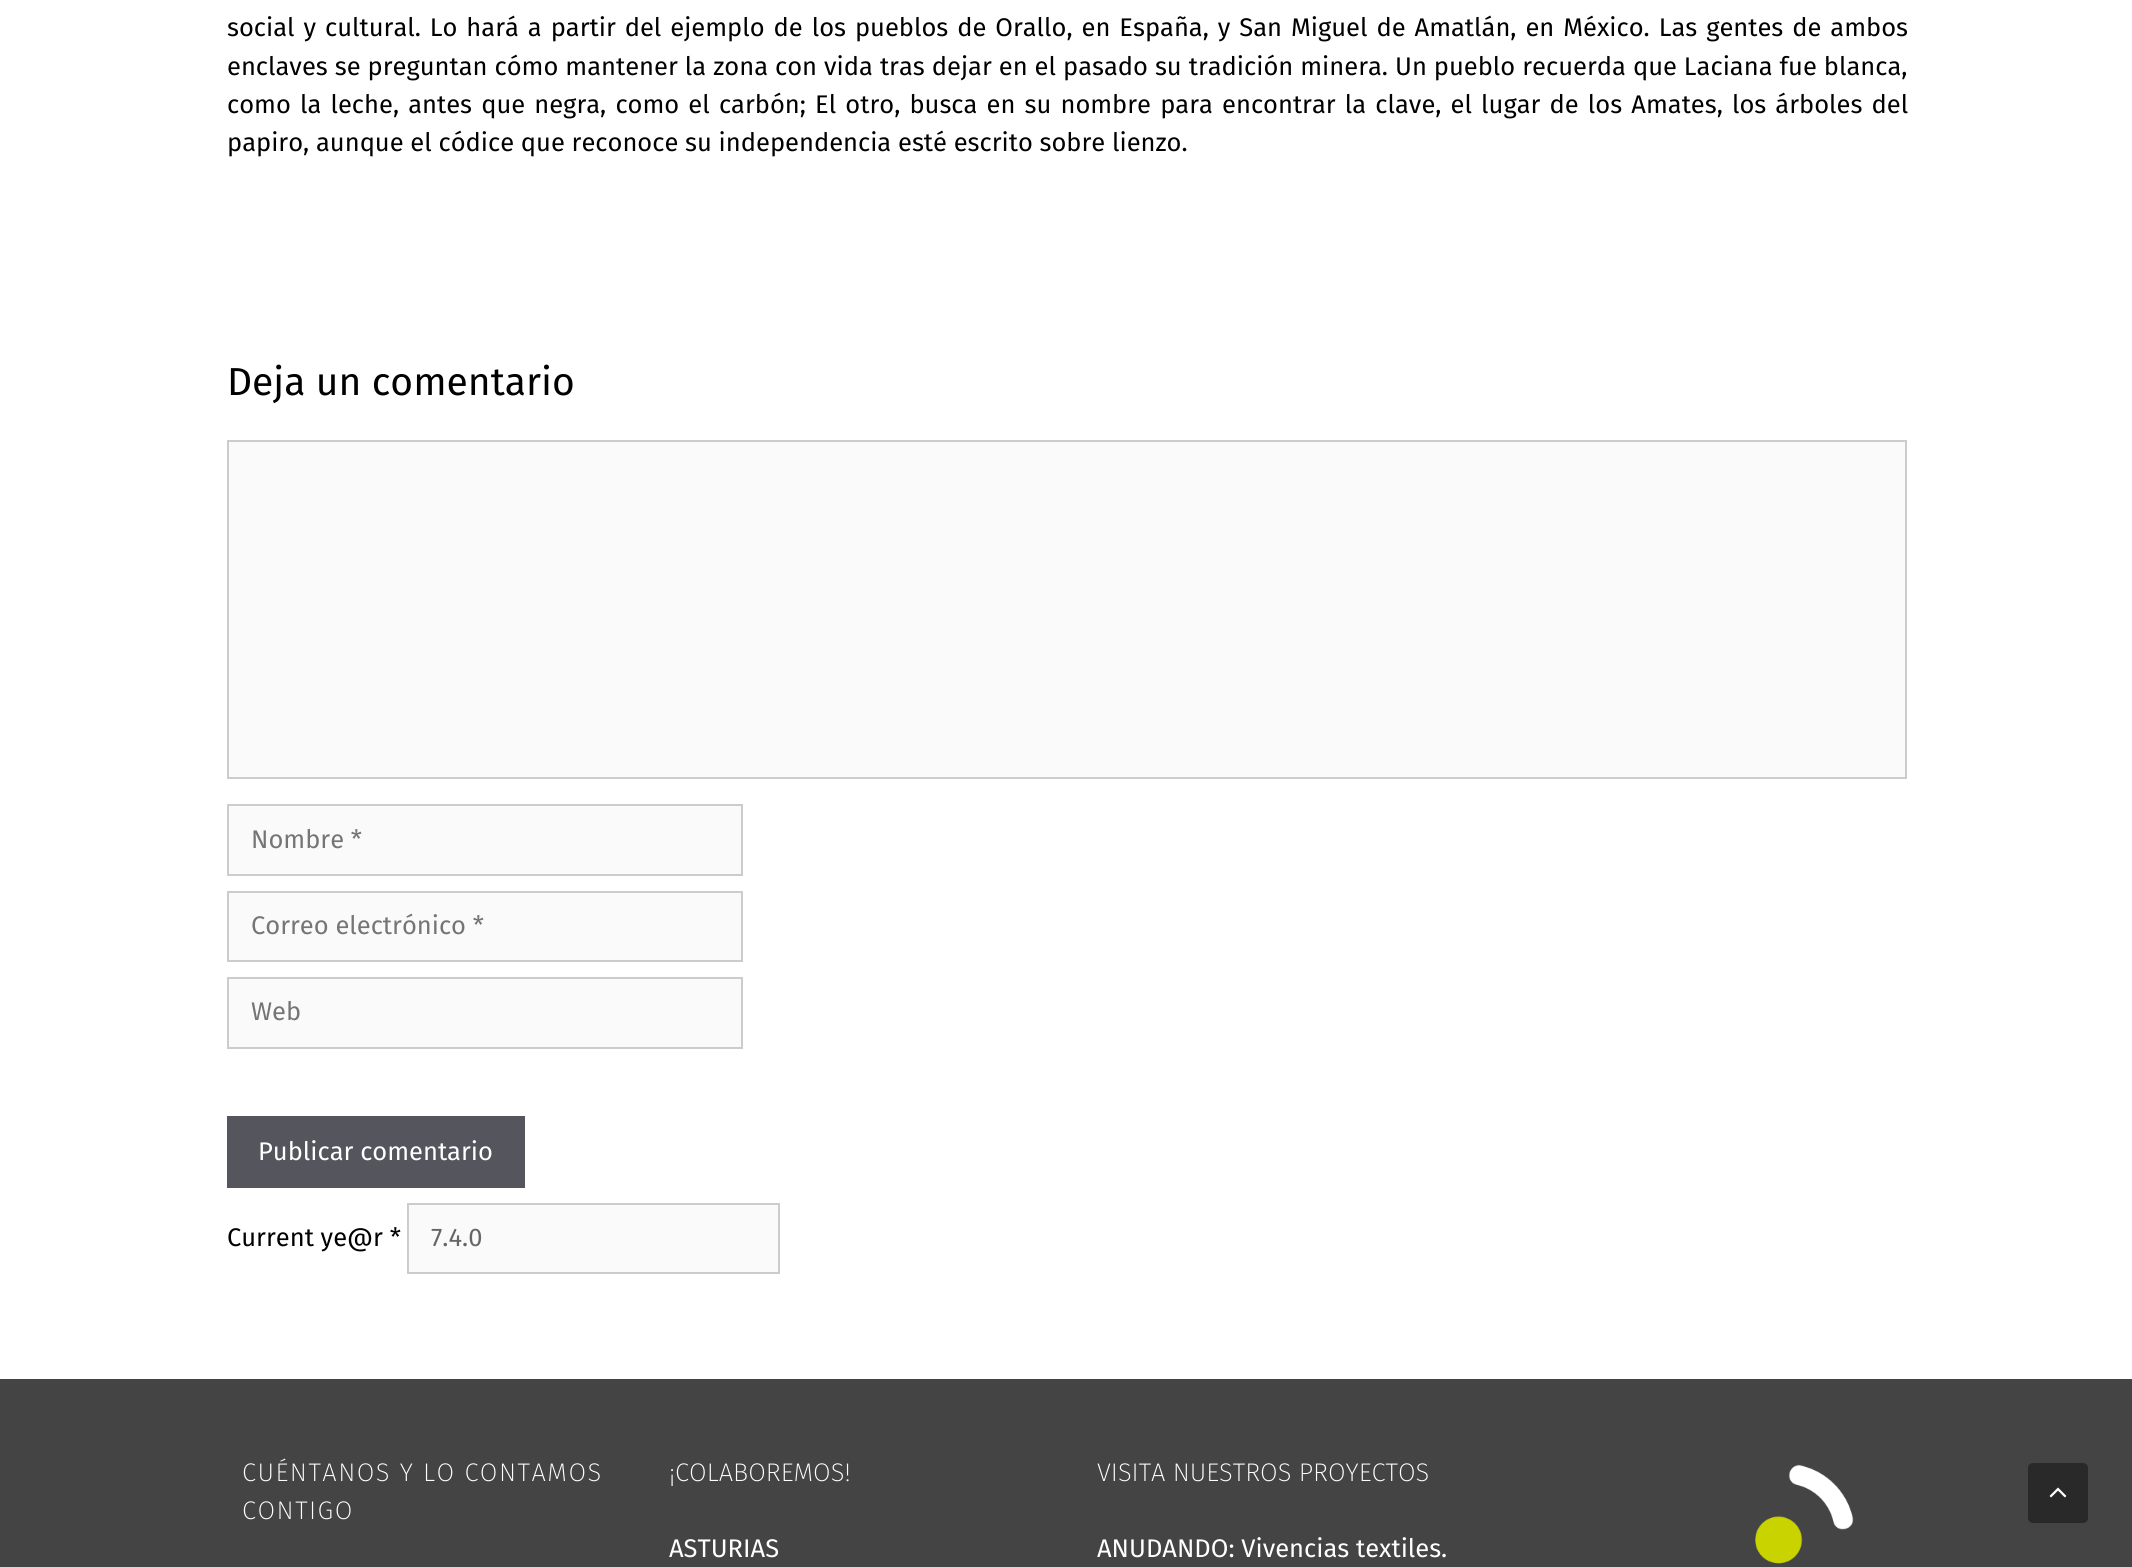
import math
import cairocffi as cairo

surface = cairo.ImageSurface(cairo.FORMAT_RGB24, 2132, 1567)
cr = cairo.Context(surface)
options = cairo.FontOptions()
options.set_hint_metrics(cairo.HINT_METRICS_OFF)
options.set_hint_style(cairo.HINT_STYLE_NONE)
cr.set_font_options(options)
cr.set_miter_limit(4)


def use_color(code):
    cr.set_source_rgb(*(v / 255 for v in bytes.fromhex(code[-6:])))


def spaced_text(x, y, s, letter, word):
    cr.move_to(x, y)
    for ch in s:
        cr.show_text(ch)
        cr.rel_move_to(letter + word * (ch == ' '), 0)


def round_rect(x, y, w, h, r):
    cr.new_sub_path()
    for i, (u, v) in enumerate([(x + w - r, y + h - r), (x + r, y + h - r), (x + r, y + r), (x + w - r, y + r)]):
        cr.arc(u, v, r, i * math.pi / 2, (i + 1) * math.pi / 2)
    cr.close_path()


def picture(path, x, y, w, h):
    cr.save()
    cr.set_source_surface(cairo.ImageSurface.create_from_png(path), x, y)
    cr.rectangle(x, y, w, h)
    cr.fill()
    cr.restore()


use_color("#ffffff")
cr.paint()
cr.select_font_face("Fira Sans")
cr.set_font_size(25.5)
use_color("#000000")
spaced_text(227, 36, "social y cultural. Lo hará a partir del ejemplo de los pueblos de Orallo, en España, y San Miguel de Amatlán, en México. Las gentes de ambos", 0, 2.2)
spaced_text(227, 75, "enclaves se preguntan cómo mantener la zona con vida tras dejar en el pasado su tradición minera. Un pueblo recuerda que Laciana fue blanca,", 0, 0.25)
spaced_text(227, 113, "como la leche, antes que negra, como el carbón; El otro, busca en su nombre para encontrar la clave, el lugar de los Amates, los árboles del", 0, 2.4)
cr.move_to(227, 151)
cr.show_text("papiro, aunque el códice que reconoce su independencia esté escrito sobre lienzo.")
cr.set_font_size(39)
cr.move_to(227, 395)
cr.show_text("Deja un comentario")
use_color("#fafafa")
cr.rectangle(228, 441, 1678, 337)
cr.fill_preserve()
use_color("#cccccc")
cr.stroke()
use_color("#fafafa")
cr.rectangle(228, 805, 514, 70)
cr.fill_preserve()
use_color("#cccccc")
cr.stroke()
cr.set_font_size(25.5)
use_color("#757575")
cr.move_to(251, 848)
cr.show_text("Nombre *")
use_color("#fafafa")
cr.rectangle(228, 892, 514, 69)
cr.fill_preserve()
use_color("#cccccc")
cr.stroke()
use_color("#757575")
cr.move_to(251, 934)
cr.show_text("Correo electrónico *")
use_color("#fafafa")
cr.rectangle(228, 978, 514, 70)
cr.fill_preserve()
use_color("#cccccc")
cr.stroke()
use_color("#757575")
cr.move_to(251, 1020)
cr.show_text("Web")
use_color("#55555e")
cr.rectangle(227, 1116, 298, 72)
cr.fill()
use_color("#ffffff")
cr.move_to(258, 1160)
cr.show_text("Publicar comentario")
use_color("#000000")
cr.move_to(227, 1246)
cr.show_text("Current ye@r *")
use_color("#fafafa")
cr.rectangle(408, 1204, 371, 69)
cr.fill_preserve()
use_color("#cccccc")
cr.stroke()
use_color("#666666")
cr.move_to(431, 1246)
cr.show_text("7.4.0")
use_color("#444444")
cr.rectangle(0, 1379, 2132, 188)
cr.fill()
cr.select_font_face("Fira Sans ExtraLight")
use_color("#ffffff")
spaced_text(242, 1481, "CUÉNTANOS Y LO CONTAMOS", 1.5, 0)
spaced_text(242, 1519, "CONTIGO", 1.5, 0)
cr.move_to(669, 1481)
cr.show_text("¡COLABOREMOS!")
cr.select_font_face("Fira Sans")
cr.move_to(669, 1557)
cr.show_text("ASTURIAS")
cr.select_font_face("Fira Sans ExtraLight")
cr.move_to(1097, 1481)
cr.show_text("VISITA NUESTROS PROYECTOS")
cr.select_font_face("Fira Sans")
cr.move_to(1097, 1557)
cr.show_text("ANUDANDO: Vivencias textiles.")
picture("img1.png", 1755, 1464, 99, 100)
use_color("#292929")
round_rect(2028, 1463, 60, 60, 5)
cr.fill()
picture("img2.png", 2049, 1487, 18, 11)
surface.write_to_png("result.png")
